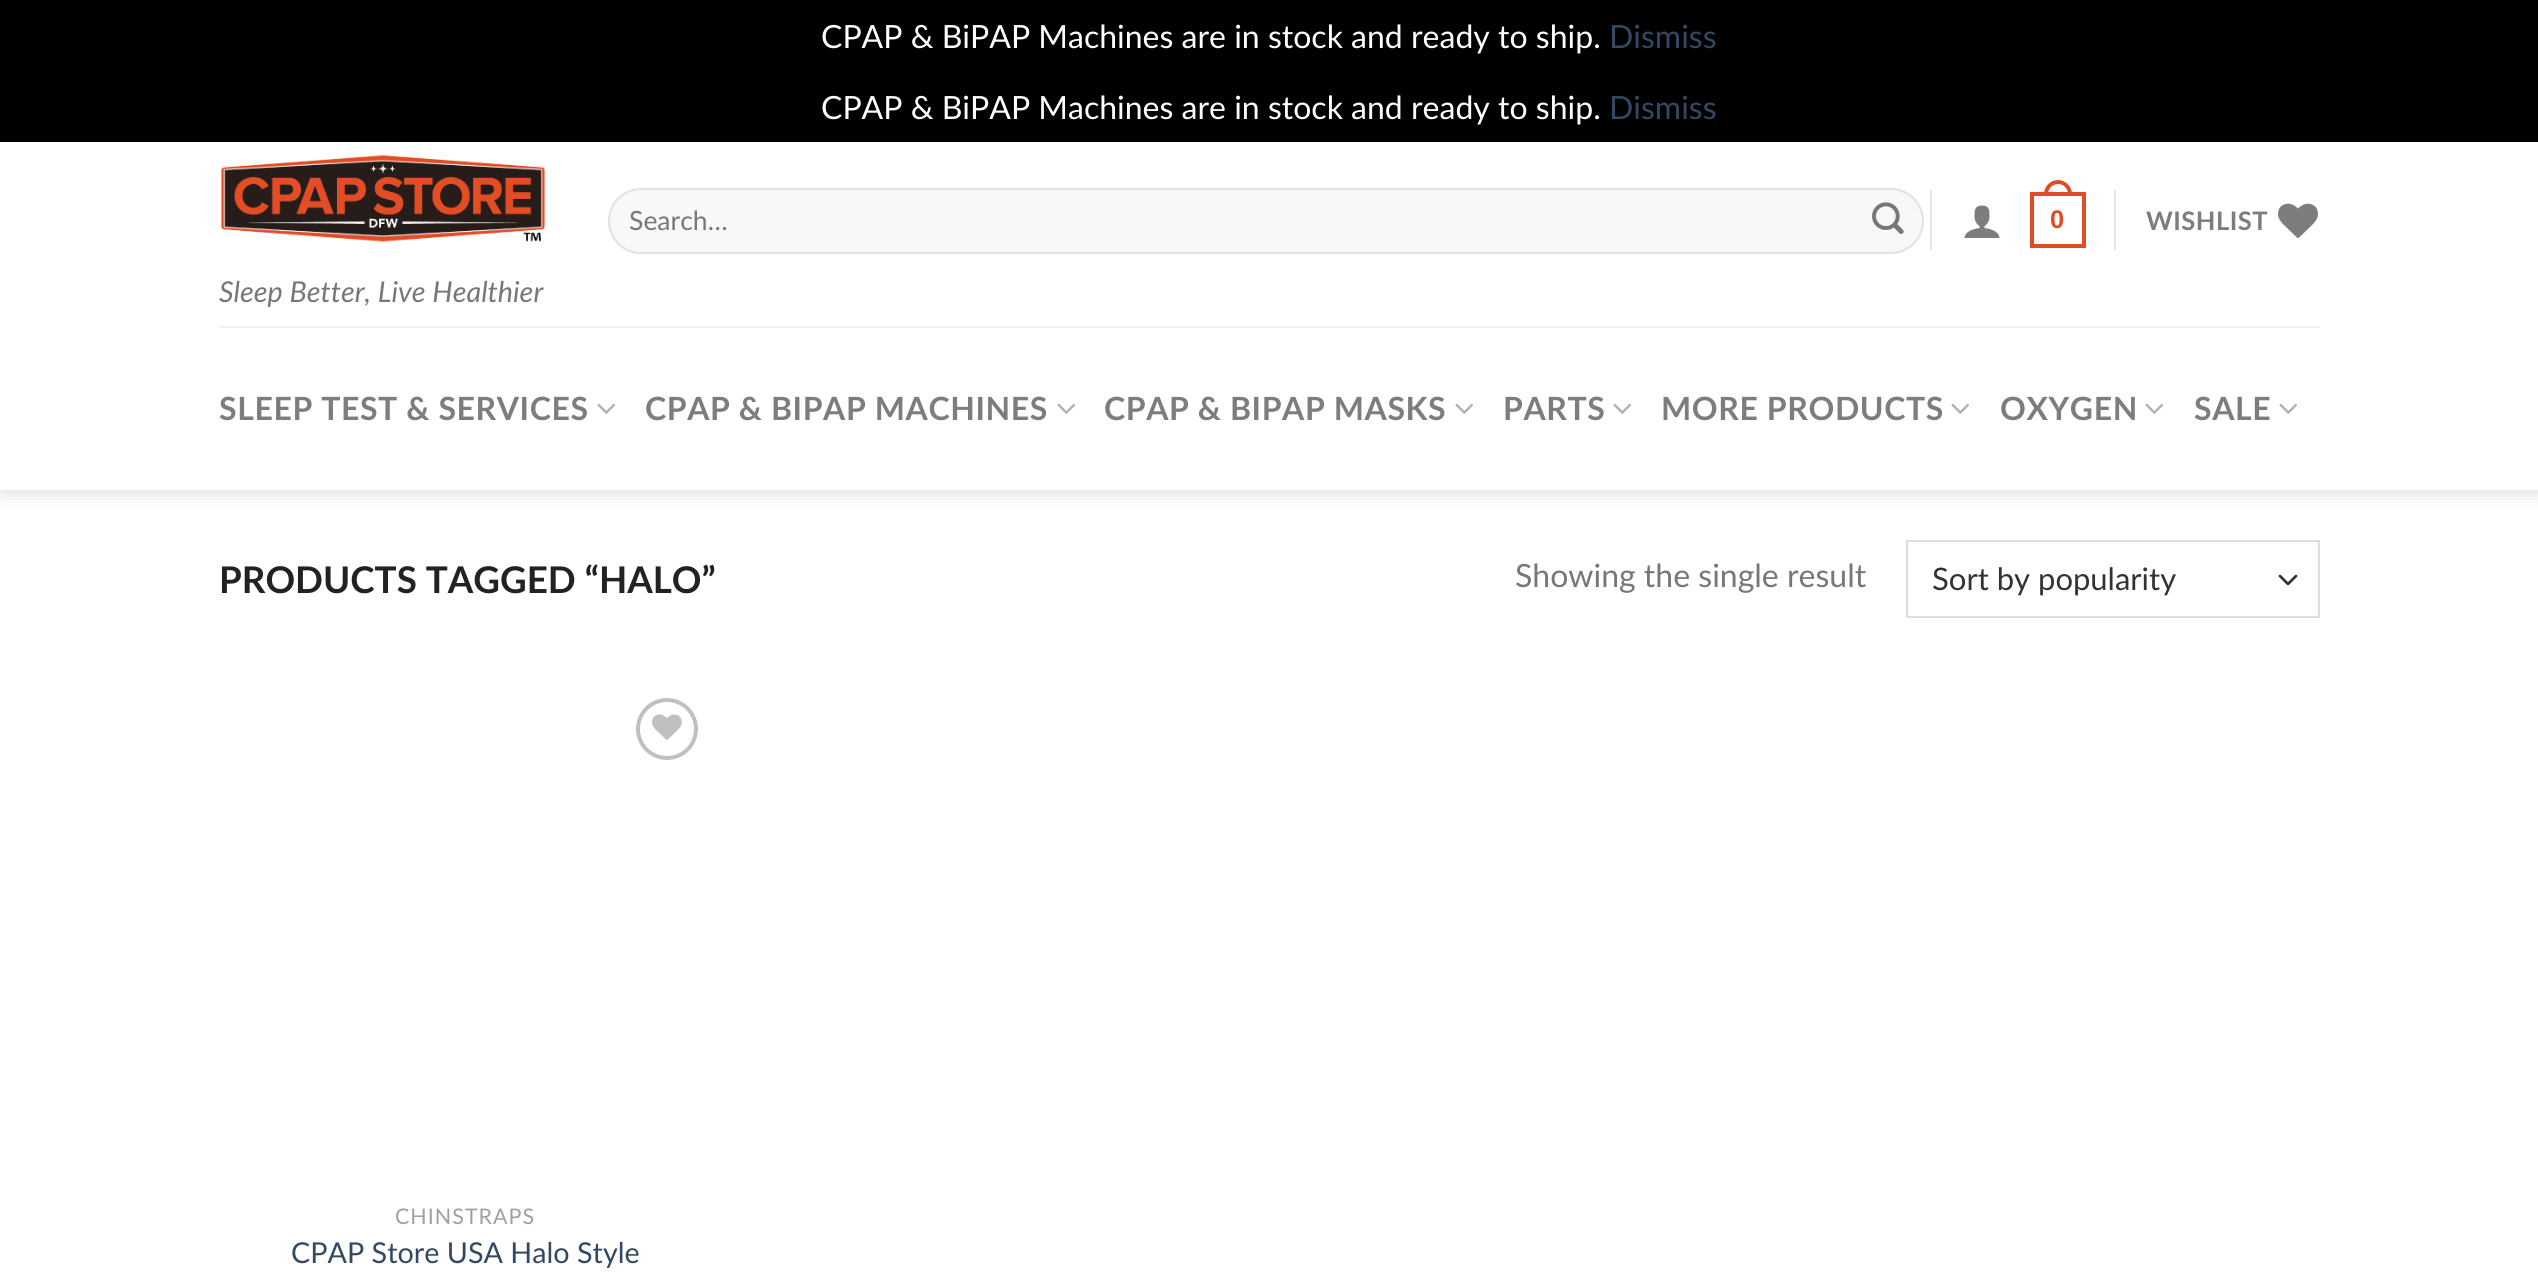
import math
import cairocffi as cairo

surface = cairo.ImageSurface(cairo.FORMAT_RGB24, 2538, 1286)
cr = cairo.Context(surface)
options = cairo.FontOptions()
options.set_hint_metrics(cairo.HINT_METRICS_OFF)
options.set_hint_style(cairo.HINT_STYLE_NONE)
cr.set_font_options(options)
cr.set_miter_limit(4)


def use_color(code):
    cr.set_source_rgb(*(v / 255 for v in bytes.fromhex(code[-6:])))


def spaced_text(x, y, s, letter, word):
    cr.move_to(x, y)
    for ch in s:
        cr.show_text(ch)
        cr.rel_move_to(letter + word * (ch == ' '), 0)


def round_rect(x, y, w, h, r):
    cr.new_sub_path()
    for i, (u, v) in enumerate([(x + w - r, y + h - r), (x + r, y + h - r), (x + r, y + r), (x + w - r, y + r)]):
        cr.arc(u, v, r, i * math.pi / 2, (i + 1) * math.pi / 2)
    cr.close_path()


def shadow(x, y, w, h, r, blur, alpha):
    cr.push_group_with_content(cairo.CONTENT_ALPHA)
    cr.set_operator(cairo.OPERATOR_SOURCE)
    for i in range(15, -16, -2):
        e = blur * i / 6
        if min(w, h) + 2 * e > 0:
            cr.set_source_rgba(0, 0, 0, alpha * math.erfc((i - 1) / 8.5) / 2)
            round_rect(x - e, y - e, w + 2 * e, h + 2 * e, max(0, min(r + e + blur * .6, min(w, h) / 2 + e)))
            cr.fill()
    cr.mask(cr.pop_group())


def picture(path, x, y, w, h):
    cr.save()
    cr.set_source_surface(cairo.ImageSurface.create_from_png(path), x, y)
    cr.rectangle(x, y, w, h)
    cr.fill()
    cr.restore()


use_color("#000000")
cr.paint()
cr.select_font_face("Lato")
cr.set_font_size(32)
use_color("#ffffff")
cr.move_to(821, 48)
cr.show_text("CPAP & BiPAP Machines are in stock and ready to ship.")
use_color("#334862")
cr.move_to(1609, 48)
cr.show_text("Dismiss")
use_color("#ffffff")
cr.move_to(821, 119)
cr.show_text("CPAP & BiPAP Machines are in stock and ready to ship.")
use_color("#334862")
cr.move_to(1609, 119)
cr.show_text("Dismiss")
use_color("#ffffff")
cr.rectangle(0, 142, 2538, 1144)
cr.fill()
cr.save()
cr.set_fill_rule(cairo.FILL_RULE_EVEN_ODD)
cr.new_path()
cr.move_to(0, 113)
cr.line_to(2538, 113)
cr.line_to(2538, 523)
cr.line_to(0, 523)
cr.close_path()
cr.move_to(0, 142)
cr.line_to(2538, 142)
cr.line_to(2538, 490)
cr.line_to(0, 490)
cr.close_path()
cr.clip()
use_color("#000000")
shadow(2, 144, 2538, 348, 0, 10, 0.15)
cr.restore()
use_color("#f8f8f8")
round_rect(608, 188, 1316, 66, 33)
cr.fill()
round_rect(609, 189, 1314, 64, 32)
cr.set_source_rgba(0, 0, 0, 0.09)
cr.stroke()
cr.set_font_size(26.5)
use_color("#777777")
cr.move_to(629, 230)
cr.show_text("Search…")
picture("img1.png", 1872, 202, 32, 32)
use_color("#e6e6e6")
cr.rectangle(1930, 190, 2, 60)
cr.fill()
picture("img2.png", 1964, 205, 36, 33)
cr.rectangle(2032, 194, 52, 52)
use_color("#e04c26")
cr.set_line_width(4)
cr.stroke()
cr.set_fill_rule(cairo.FILL_RULE_EVEN_ODD)
cr.new_path()
cr.move_to(2058, 180)
cr.curve_to(2065.5, 180, 2072, 186.5, 2072, 194)
cr.line_to(2072, 196)
cr.line_to(2044, 196)
cr.line_to(2044, 194)
cr.curve_to(2044, 186.5, 2050.5, 180, 2058, 180)
cr.close_path()
cr.move_to(2058, 184)
cr.curve_to(2063.5, 184, 2068, 188.5, 2068, 194)
cr.line_to(2068, 196)
cr.line_to(2048, 196)
cr.line_to(2048, 194)
cr.curve_to(2048, 188.5, 2052.5, 184, 2058, 184)
cr.close_path()
cr.fill()
cr.select_font_face("Liberation Sans", cairo.FONT_SLANT_NORMAL, cairo.FONT_WEIGHT_BOLD)
cr.set_font_size(25.5)
spaced_text(2050, 228, "0", 0.5, 0)
use_color("#e6e6e6")
cr.rectangle(2114, 190, 2, 60)
cr.fill()
cr.select_font_face("Lato", cairo.FONT_SLANT_NORMAL, cairo.FONT_WEIGHT_BOLD)
use_color("#7d7d7d")
spaced_text(2146, 230, "WISHLIST", 0.5, 0)
picture("img3.png", 2278, 203, 40, 35)
picture("img4.png", 220, 155, 326, 87)
cr.select_font_face("Lato", cairo.FONT_SLANT_ITALIC)
cr.set_font_size(28.75)
use_color("#777777")
cr.move_to(219, 302)
cr.show_text("Sleep Better, Live Healthier")
use_color("#f1f1f1")
cr.rectangle(220, 326, 2100, 2)
cr.fill()
cr.select_font_face("Lato", cairo.FONT_SLANT_NORMAL, cairo.FONT_WEIGHT_BOLD)
cr.set_font_size(32)
use_color("#7d7d7d")
spaced_text(219, 420, "SLEEP TEST & SERVICES", 0.6, 0)
picture("img5.png", 597, 403, 19, 11)
spaced_text(645, 420, "CPAP & BIPAP MACHINES", 0.6, 0)
picture("img5.png", 1057, 403, 19, 11)
spaced_text(1104, 420, "CPAP & BIPAP MASKS", 0.6, 0)
picture("img5.png", 1455, 403, 19, 11)
spaced_text(1503, 420, "PARTS", 0.6, 0)
picture("img5.png", 1613, 403, 19, 11)
spaced_text(1661, 420, "MORE PRODUCTS", 0.6, 0)
picture("img5.png", 1951, 403, 19, 11)
spaced_text(2000, 420, "OXYGEN", 0.6, 0)
picture("img5.png", 2145, 403, 19, 11)
spaced_text(2194, 420, "SALE", 0.6, 0)
picture("img5.png", 2279, 403, 19, 11)
cr.set_font_size(36.75)
use_color("#222222")
cr.move_to(219, 593)
cr.show_text("PRODUCTS TAGGED “HALO”")
cr.select_font_face("Lato")
cr.set_font_size(32)
use_color("#777777")
cr.move_to(1515, 587)
cr.show_text("Showing the single result")
cr.new_path()
cr.move_to(2280, 576)
cr.line_to(2288, 584)
cr.line_to(2296, 576)
use_color("#333333")
cr.set_line_width(2.7)
cr.set_line_cap(cairo.LINE_CAP_ROUND)
cr.set_line_join(cairo.LINE_JOIN_ROUND)
cr.stroke()
cr.rectangle(1907, 541, 412, 76)
use_color("#dddddd")
cr.set_line_width(2)
cr.set_line_cap(cairo.LINE_CAP_BUTT)
cr.set_line_join(cairo.LINE_JOIN_MITER)
cr.stroke()
cr.set_font_size(31)
use_color("#333333")
cr.move_to(1932, 590)
cr.show_text("Sort by popularity")
cr.new_path()
cr.arc(667, 729, 29, 0, 2 * math.pi)
use_color("#c0c0c0")
cr.set_line_width(4)
cr.stroke()
picture("img6.png", 652, 714, 30, 26)
cr.set_font_size(21.5)
use_color("#a0a0a0")
spaced_text(395, 1224, "CHINSTRAPS", 1, 0)
cr.set_font_size(28.75)
use_color("#334862")
cr.move_to(291, 1263)
cr.show_text("CPAP Store USA Halo Style")
surface.write_to_png("result.png")
